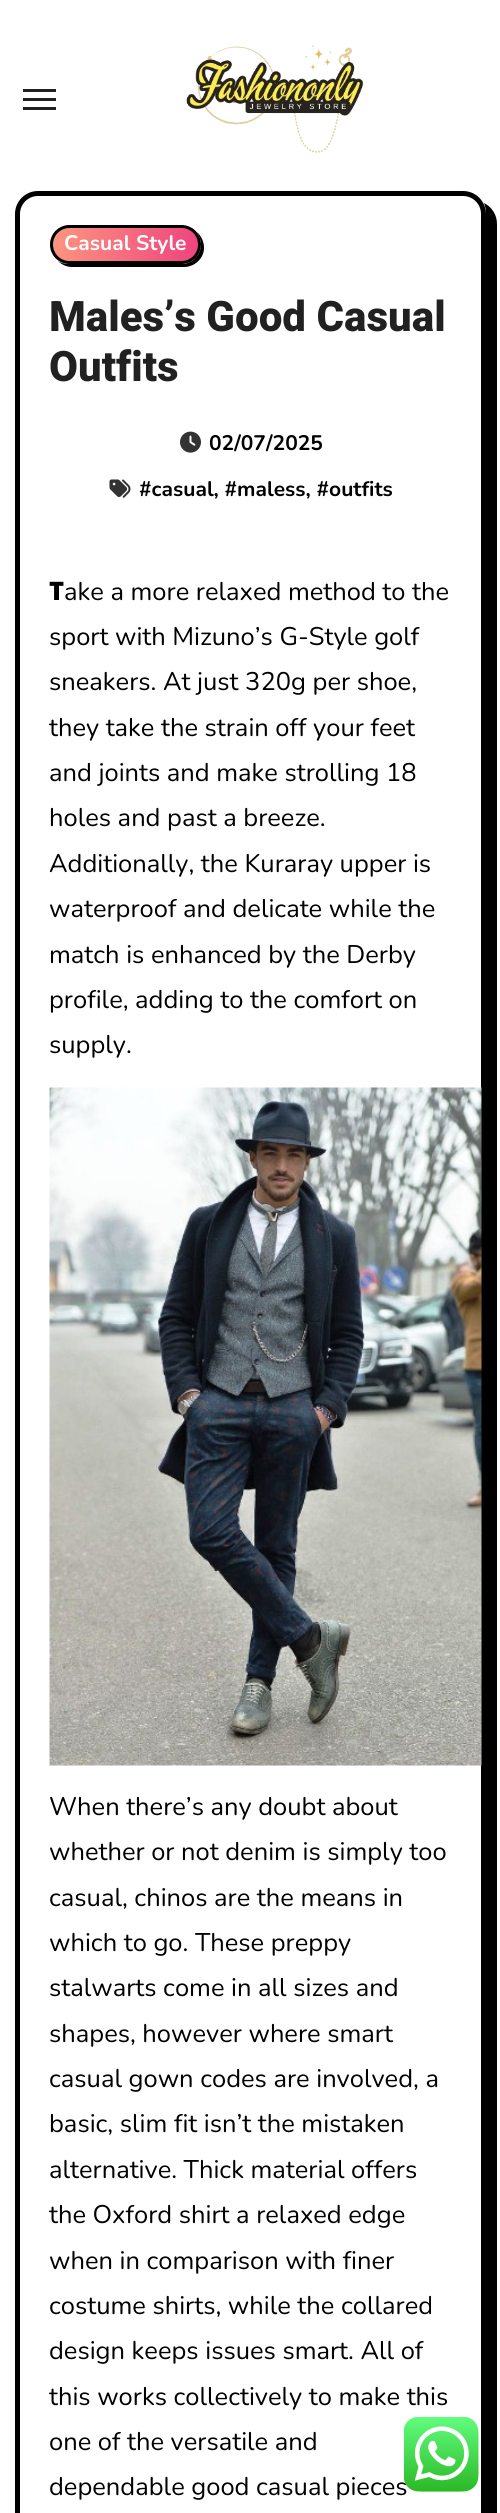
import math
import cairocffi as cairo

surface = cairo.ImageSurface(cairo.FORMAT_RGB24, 500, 2513)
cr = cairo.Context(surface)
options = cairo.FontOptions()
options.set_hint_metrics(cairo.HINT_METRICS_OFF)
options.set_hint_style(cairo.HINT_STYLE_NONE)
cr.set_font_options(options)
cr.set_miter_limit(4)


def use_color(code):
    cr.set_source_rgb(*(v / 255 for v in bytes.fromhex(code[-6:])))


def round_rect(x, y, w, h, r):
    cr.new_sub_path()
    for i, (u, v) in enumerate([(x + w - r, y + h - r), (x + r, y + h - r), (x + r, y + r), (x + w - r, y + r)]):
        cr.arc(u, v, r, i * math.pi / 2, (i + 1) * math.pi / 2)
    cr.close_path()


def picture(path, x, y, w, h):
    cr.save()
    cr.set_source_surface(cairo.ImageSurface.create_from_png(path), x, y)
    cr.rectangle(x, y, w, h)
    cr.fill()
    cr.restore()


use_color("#ffffff")
cr.paint()
use_color("#212121")
cr.rectangle(23, 89, 33, 3)
cr.fill()
cr.rectangle(23, 98, 33, 3)
cr.fill()
cr.rectangle(23, 107, 33, 3)
cr.fill()
picture("img1.png", 186, 45, 178, 108)
use_color("#000000")
cr.new_path()
cr.move_to(29, 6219)
cr.curve_to(32, 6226, 40, 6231, 49, 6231)
cr.line_to(474, 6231)
cr.curve_to(487, 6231, 497, 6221, 497, 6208)
cr.line_to(497, 224)
cr.curve_to(497, 215, 492, 207, 484, 203)
cr.curve_to(485, 206, 486, 209, 486, 213)
cr.line_to(486, 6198)
cr.curve_to(486, 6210, 476, 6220, 464, 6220)
cr.line_to(38, 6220)
cr.curve_to(34, 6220, 31, 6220, 29, 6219)
cr.close_path()
cr.fill()
use_color("#ffffff")
round_rect(17.5, 193.5, 466, 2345, 20.5)
cr.fill_preserve()
use_color("#000000")
cr.set_line_width(5)
cr.stroke()
cr.new_path()
cr.move_to(58, 261)
cr.curve_to(62, 265, 67, 267, 72, 267)
cr.line_to(184, 267)
cr.curve_to(195, 267, 204, 258, 204, 248)
cr.curve_to(204, 241, 201, 236, 197, 232)
cr.curve_to(199, 236, 201, 240, 201, 244)
cr.curve_to(201, 255, 192, 264, 182, 264)
cr.line_to(69, 264)
cr.curve_to(65, 264, 61, 263, 58, 261)
cr.close_path()
cr.fill()
cr.save()
round_rect(50, 225, 151, 39, 19.5)
cr.clip()
gradient = cairo.LinearGradient(52, 232, 199, 257)
gradient.add_color_stop_rgba(0, 0.992, 0.588, 0.498, 1)
gradient.add_color_stop_rgba(1, 0.933, 0.263, 0.498, 1)
cr.set_source(gradient)
cr.rectangle(53, 228, 145, 33)
cr.fill()
cr.restore()
round_rect(51.5, 226.5, 148, 36, 18)
cr.set_line_width(3)
cr.stroke()
cr.select_font_face("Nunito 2 ExtraLight")
cr.set_font_size(21)
use_color("#ffffff")
cr.move_to(64, 250)
cr.show_text("Casual Style")
cr.select_font_face("Heebo ExtraBold")
cr.set_font_size(42)
use_color("#212121")
cr.move_to(49, 331)
cr.show_text("Males’s Good Casual")
cr.move_to(49, 381)
cr.show_text("Outfits")
picture("img2.png", 180, 431, 21, 22)
cr.select_font_face("Nunito 2 ExtraLight")
cr.set_font_size(21)
use_color("#000000")
cr.move_to(209, 450)
cr.show_text("02/07/2025")
picture("img3.png", 109, 479, 22, 19)
cr.move_to(139, 496)
cr.show_text("#casual, #maless, #outfits")
cr.select_font_face("Noto Sans Black")
cr.set_font_size(25.5)
cr.move_to(49, 600)
cr.show_text("T")
cr.select_font_face("Nunito ExtraLight")
cr.move_to(64, 600)
cr.show_text("ake a more relaxed method to the")
cr.move_to(49, 645)
cr.show_text("sport with Mizuno’s G-Style golf")
cr.move_to(49, 690)
cr.show_text("sneakers. At just 320g per shoe,")
cr.move_to(49, 736)
cr.show_text("they take the strain off your feet")
cr.move_to(49, 781)
cr.show_text("and joints and make strolling 18")
cr.move_to(49, 826)
cr.show_text("holes and past a breeze.")
cr.move_to(49, 872)
cr.show_text("Additionally, the Kuraray upper is")
cr.move_to(49, 917)
cr.show_text("waterproof and delicate while the")
cr.move_to(49, 963)
cr.show_text("match is enhanced by the Derby")
cr.move_to(49, 1008)
cr.show_text("profile, adding to the comfort on")
cr.move_to(49, 1053)
cr.show_text("supply.")
picture("img4.png", 49, 1087, 433, 679)
cr.move_to(49, 1815)
cr.show_text("When there’s any doubt about")
cr.move_to(49, 1860)
cr.show_text("whether or not denim is simply too")
cr.move_to(49, 1906)
cr.show_text("casual, chinos are the means in")
cr.move_to(49, 1951)
cr.show_text("which to go. These preppy")
cr.move_to(49, 1996)
cr.show_text("stalwarts come in all sizes and")
cr.move_to(49, 2042)
cr.show_text("shapes, however where smart")
cr.move_to(49, 2087)
cr.show_text("casual gown codes are involved, a")
cr.move_to(49, 2132)
cr.show_text("basic, slim fit isn’t the mistaken")
cr.move_to(49, 2178)
cr.show_text("alternative. Thick material offers")
cr.move_to(49, 2223)
cr.show_text("the Oxford shirt a relaxed edge")
cr.move_to(49, 2269)
cr.show_text("when in comparison with finer")
cr.move_to(49, 2314)
cr.show_text("costume shirts, while the collared")
cr.move_to(49, 2359)
cr.show_text("design keeps issues smart. All of")
cr.move_to(49, 2405)
cr.show_text("this works collectively to make this")
cr.move_to(49, 2450)
cr.show_text("one of the versatile and")
cr.move_to(49, 2495)
cr.show_text("dependable good casual pieces")
picture("img5.png", 404, 2417, 75, 75)
surface.write_to_png("result.png")
